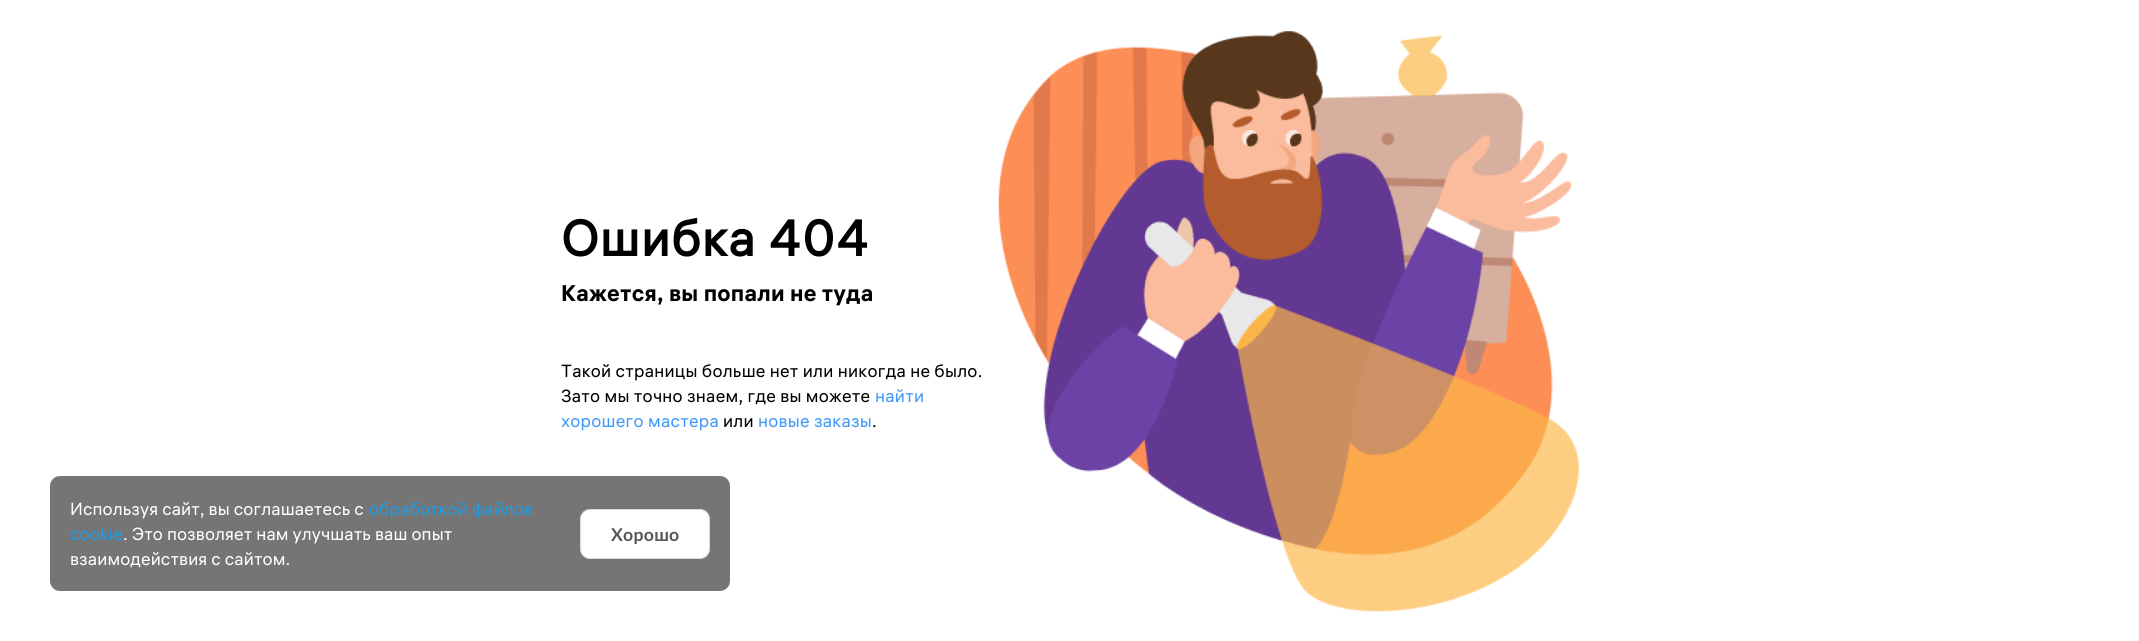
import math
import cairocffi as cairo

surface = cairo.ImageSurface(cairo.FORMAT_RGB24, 2139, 641)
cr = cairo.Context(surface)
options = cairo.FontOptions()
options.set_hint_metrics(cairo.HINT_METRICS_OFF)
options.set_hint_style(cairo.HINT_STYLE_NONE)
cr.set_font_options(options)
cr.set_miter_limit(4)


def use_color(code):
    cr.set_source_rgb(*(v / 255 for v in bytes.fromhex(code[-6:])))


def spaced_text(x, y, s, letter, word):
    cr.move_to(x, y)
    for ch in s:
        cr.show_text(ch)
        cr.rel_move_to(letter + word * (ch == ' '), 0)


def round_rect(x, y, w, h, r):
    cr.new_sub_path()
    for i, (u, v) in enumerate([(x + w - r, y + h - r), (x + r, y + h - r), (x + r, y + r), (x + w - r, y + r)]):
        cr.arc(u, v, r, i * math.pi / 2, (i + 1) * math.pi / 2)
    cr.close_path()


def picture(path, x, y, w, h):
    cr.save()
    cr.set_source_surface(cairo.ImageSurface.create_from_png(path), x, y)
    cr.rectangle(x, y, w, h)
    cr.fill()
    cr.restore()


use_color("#ffffff")
cr.paint()
cr.select_font_face("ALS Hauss", cairo.FONT_SLANT_ITALIC, cairo.FONT_WEIGHT_BOLD)
cr.set_font_size(50)
use_color("#000000")
spaced_text(561, 256, "Ошибка 404", 1.25, 0)
cr.select_font_face("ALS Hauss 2", cairo.FONT_SLANT_ITALIC, cairo.FONT_WEIGHT_BOLD)
cr.set_font_size(22.5)
spaced_text(561, 301, "Кажется, вы попали не туда", 0.25, 0)
cr.select_font_face("ALS Hauss", cairo.FONT_SLANT_ITALIC)
cr.set_font_size(17.5)
spaced_text(561, 377, "Такой страницы больше нет или никогда не было.", 0.25, 0)
spaced_text(561, 402, "Зато мы точно знаем, где вы можете", 0.25, 0)
use_color("#4099fb")
spaced_text(875, 402, "найти", 0.25, 0)
spaced_text(561, 427, "хорошего мастера", 0.25, 0)
use_color("#000000")
spaced_text(723, 427, "или", 0.25, 0)
use_color("#4099fb")
spaced_text(758, 427, "новые заказы", 0.25, 0)
use_color("#000000")
spaced_text(872, 427, ".", 0.25, 0)
picture("img1.png", 998, 31, 581, 581)
use_color("#757575")
round_rect(50, 476, 680, 115, 10)
cr.fill()
use_color("#ffffff")
spaced_text(70, 515, "Используя сайт, вы соглашаетесь с", 0.1, 0)
use_color("#1a9ce9")
spaced_text(369, 515, "обработкой файлов", 0.1, 0)
spaced_text(70, 540, "cookie", 0.1, 0)
use_color("#ffffff")
spaced_text(123, 540, ". Это позволяет нам улучшать ваш опыт", 0.1, 0)
spaced_text(70, 565, "взаимодействия с сайтом.", 0.1, 0)
round_rect(580.5, 509.5, 129, 49, 9.5)
cr.fill_preserve()
use_color("#d8d8d8")
cr.set_line_width(1)
cr.stroke()
cr.select_font_face("Lato", cairo.FONT_SLANT_NORMAL, cairo.FONT_WEIGHT_BOLD)
use_color("#575757")
spaced_text(611, 541, "Хорошо", 0.25, 0)
surface.write_to_png("result.png")
